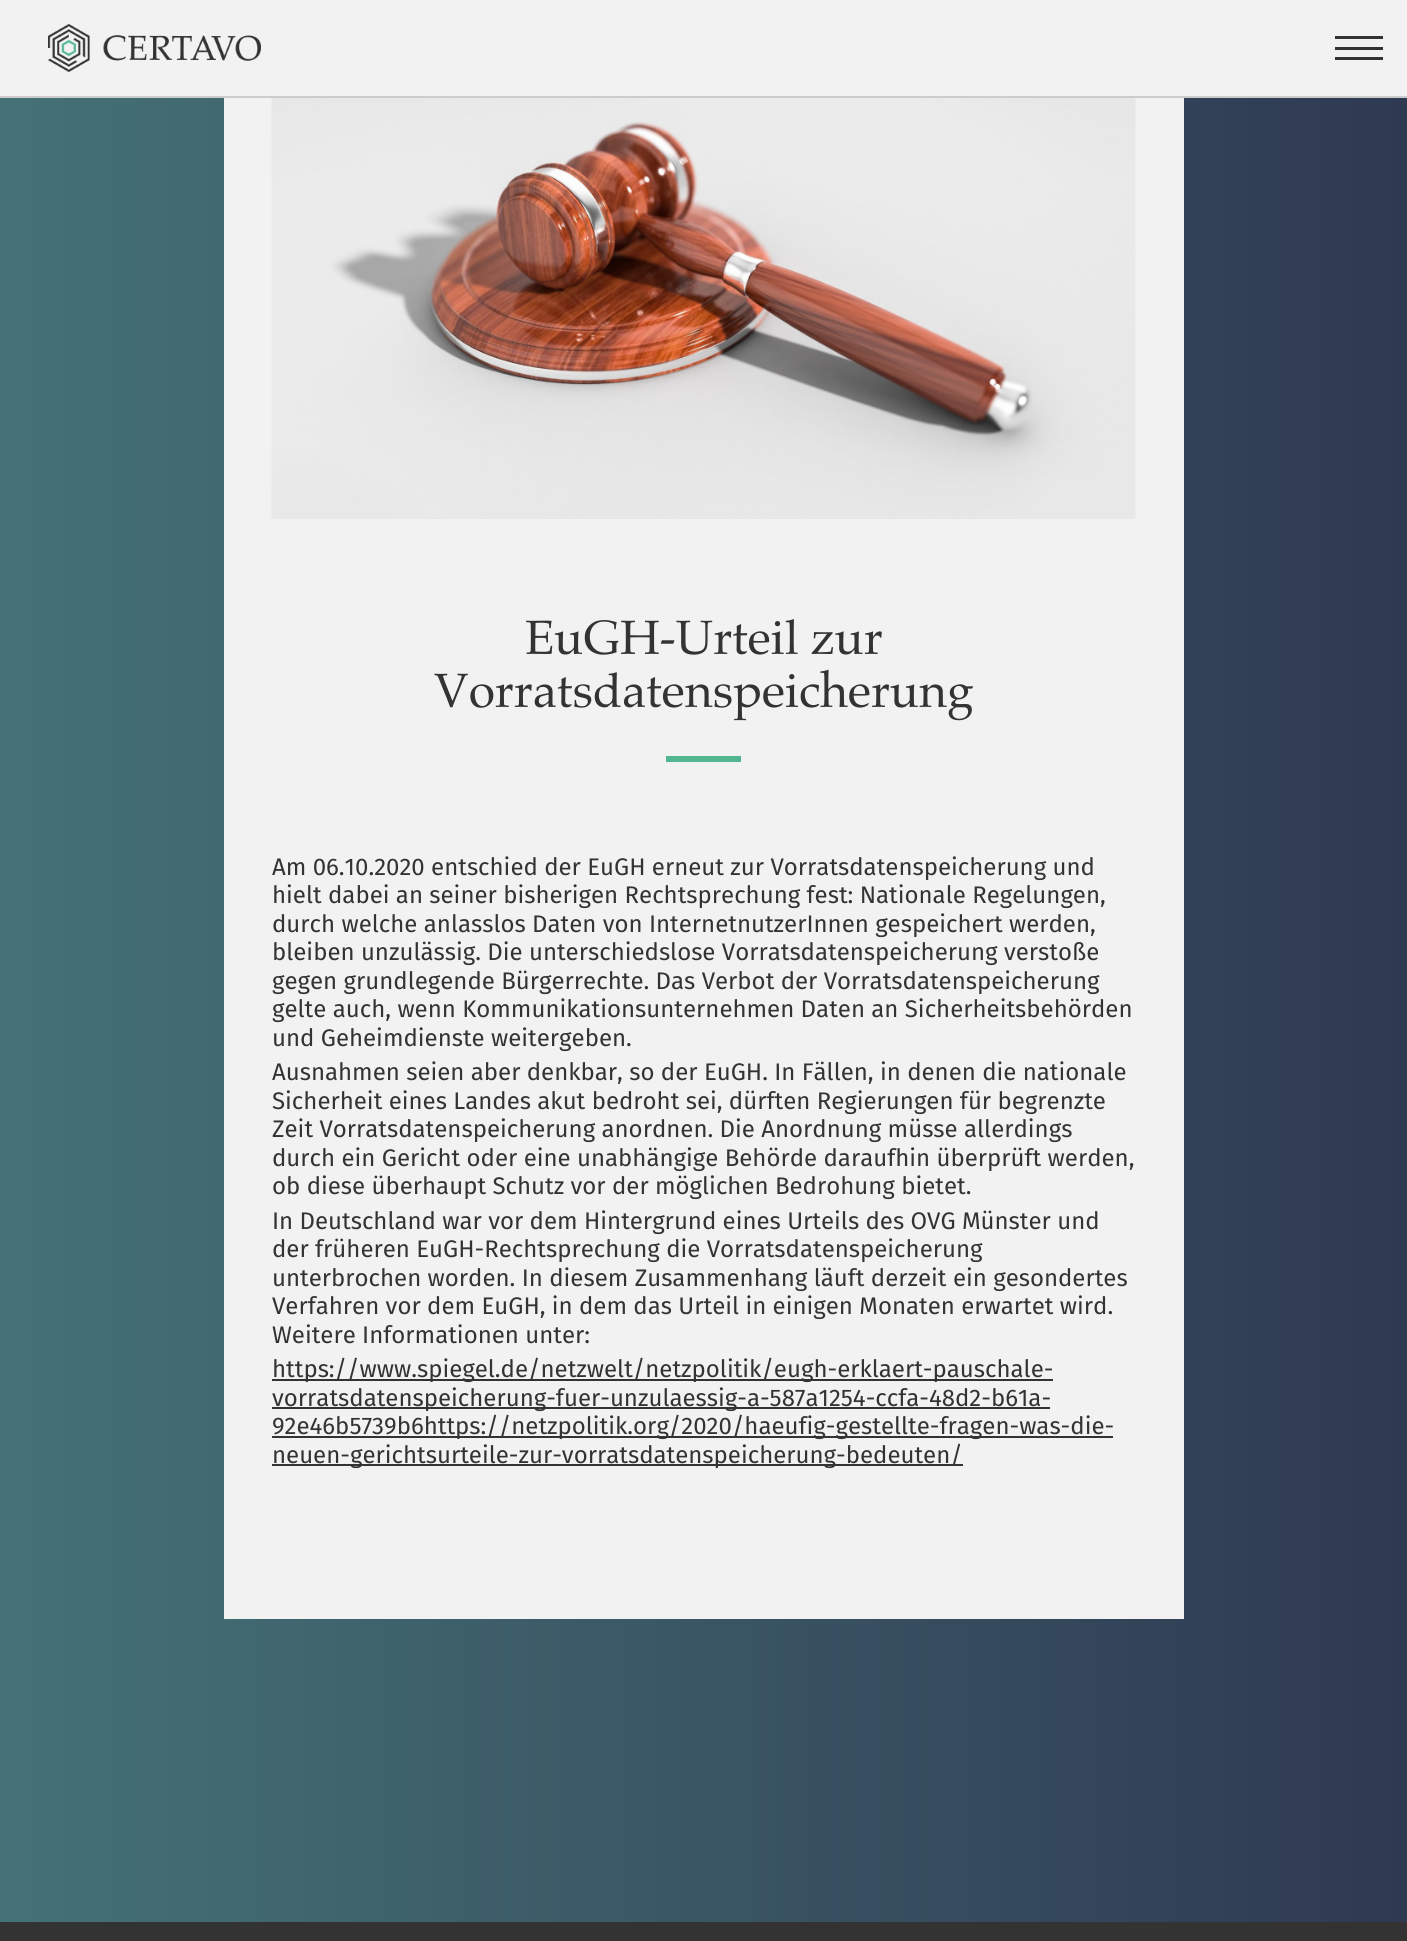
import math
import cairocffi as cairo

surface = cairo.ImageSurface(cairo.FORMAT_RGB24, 1407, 1941)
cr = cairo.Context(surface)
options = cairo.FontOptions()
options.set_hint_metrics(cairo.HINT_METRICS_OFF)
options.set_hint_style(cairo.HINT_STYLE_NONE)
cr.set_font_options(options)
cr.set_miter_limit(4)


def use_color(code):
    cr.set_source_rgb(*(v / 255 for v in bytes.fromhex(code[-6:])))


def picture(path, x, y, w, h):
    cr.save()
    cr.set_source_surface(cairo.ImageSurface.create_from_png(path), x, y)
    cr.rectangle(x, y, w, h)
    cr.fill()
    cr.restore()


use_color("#ffffff")
cr.paint()
gradient = cairo.LinearGradient(0, 1118, 1407, 1118)
gradient.add_color_stop_rgba(0, 0.267, 0.447, 0.463, 1)
gradient.add_color_stop_rgba(1, 0.184, 0.224, 0.322, 1)
cr.set_source(gradient)
cr.rectangle(0, 98, 1407, 1824)
cr.fill()
use_color("#f2f2f2")
cr.rectangle(0, 0, 1407, 96)
cr.fill()
use_color("#cccccc")
cr.rectangle(0, 96, 1407, 2)
cr.fill()
picture("img1.png", 48, 24, 213, 48)
use_color("#333333")
cr.rectangle(1335, 36, 48, 3)
cr.fill()
cr.rectangle(1335, 47, 48, 3)
cr.fill()
cr.rectangle(1335, 57, 48, 3)
cr.fill()
use_color("#f2f2f2")
cr.rectangle(224, 98, 960, 1521)
cr.fill()
picture("img2.png", 271, 98, 865, 421)
cr.select_font_face("Palatino")
cr.set_font_size(48)
use_color("#333333")
cr.move_to(525, 654)
cr.show_text("EuGH-Urteil zur")
cr.move_to(434, 707)
cr.show_text("Vorratsdatenspeicherung")
use_color("#52b790")
cr.rectangle(666, 756, 75, 6)
cr.fill()
cr.select_font_face("Fira Sans")
cr.set_font_size(24)
use_color("#333333")
cr.move_to(272, 875)
cr.show_text("Am 06.10.2020 entschied der EuGH erneut zur Vorratsdatenspeicherung und")
cr.move_to(272, 903)
cr.show_text("hielt dabei an seiner bisherigen Rechtsprechung fest: Nationale Regelungen,")
cr.move_to(272, 932)
cr.show_text("durch welche anlasslos Daten von InternetnutzerInnen gespeichert werden,")
cr.move_to(272, 960)
cr.show_text("bleiben unzulässig. Die unterschiedslose Vorratsdatenspeicherung verstoße")
cr.move_to(272, 989)
cr.show_text("gegen grundlegende Bürgerrechte. Das Verbot der Vorratsdatenspeicherung")
cr.move_to(272, 1017)
cr.show_text("gelte auch, wenn Kommunikationsunternehmen Daten an Sicherheitsbehörden")
cr.move_to(272, 1046)
cr.show_text("und Geheimdienste weitergeben.")
cr.move_to(272, 1080)
cr.show_text("Ausnahmen seien aber denkbar, so der EuGH. In Fällen, in denen die nationale")
cr.move_to(272, 1109)
cr.show_text("Sicherheit eines Landes akut bedroht sei, dürften Regierungen für begrenzte")
cr.move_to(272, 1137)
cr.show_text("Zeit Vorratsdatenspeicherung anordnen. Die Anordnung müsse allerdings")
cr.move_to(272, 1166)
cr.show_text("durch ein Gericht oder eine unabhängige Behörde daraufhin überprüft werden,")
cr.move_to(272, 1194)
cr.show_text("ob diese überhaupt Schutz vor der möglichen Bedrohung bietet.")
cr.move_to(272, 1229)
cr.show_text("In Deutschland war vor dem Hintergrund eines Urteils des OVG Münster und")
cr.move_to(272, 1257)
cr.show_text("der früheren EuGH-Rechtsprechung die Vorratsdatenspeicherung")
cr.move_to(272, 1286)
cr.show_text("unterbrochen worden. In diesem Zusammenhang läuft derzeit ein gesondertes")
cr.move_to(272, 1314)
cr.show_text("Verfahren vor dem EuGH, in dem das Urteil in einigen Monaten erwartet wird.")
cr.move_to(272, 1343)
cr.show_text("Weitere Informationen unter:")
cr.rectangle(272, 1379, 781, 2)
cr.fill()
cr.move_to(272, 1377)
cr.show_text("https://www.spiegel.de/netzwelt/netzpolitik/eugh-erklaert-pauschale-")
cr.rectangle(272, 1407, 778, 2)
cr.fill()
cr.move_to(272, 1406)
cr.show_text("vorratsdatenspeicherung-fuer-unzulaessig-a-587a1254-ccfa-48d2-b61a-")
cr.rectangle(272, 1436, 841, 2)
cr.fill()
cr.move_to(272, 1434)
cr.show_text("92e46b5739b6https://netzpolitik.org/2020/haeufig-gestellte-fragen-was-die-")
cr.rectangle(272, 1464, 691, 2)
cr.fill()
cr.move_to(272, 1463)
cr.show_text("neuen-gerichtsurteile-zur-vorratsdatenspeicherung-bedeuten/")
cr.rectangle(0, 1922, 1407, 19)
cr.fill()
surface.write_to_png("result.png")
